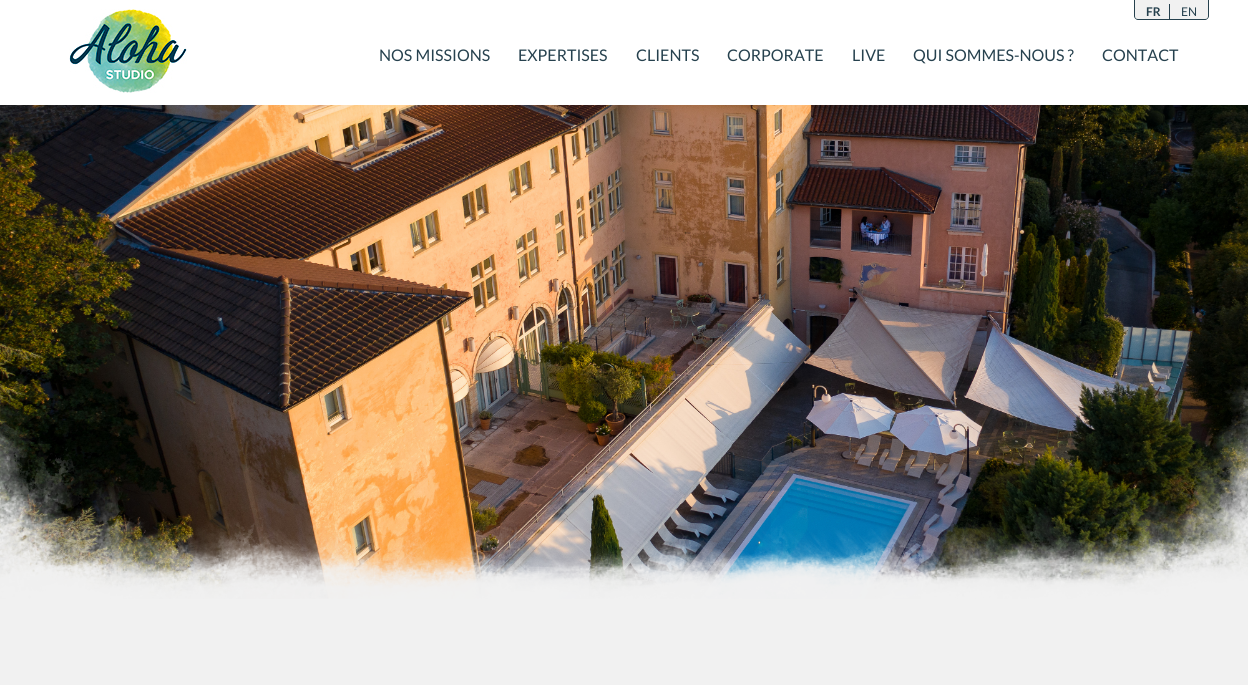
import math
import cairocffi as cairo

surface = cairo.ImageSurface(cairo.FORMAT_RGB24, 1248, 685)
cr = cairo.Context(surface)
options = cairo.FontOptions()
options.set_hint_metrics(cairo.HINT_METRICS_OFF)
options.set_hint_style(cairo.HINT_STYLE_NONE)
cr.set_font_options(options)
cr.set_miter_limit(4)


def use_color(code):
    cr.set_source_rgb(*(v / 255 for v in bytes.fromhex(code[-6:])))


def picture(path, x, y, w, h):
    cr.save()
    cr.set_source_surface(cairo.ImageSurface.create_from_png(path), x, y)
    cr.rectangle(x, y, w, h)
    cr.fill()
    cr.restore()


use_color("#ffffff")
cr.paint()
picture("img1.png", 69, 9, 118, 84)
use_color("#f1f1f1")
cr.new_path()
cr.move_to(1135, 0)
cr.line_to(1208, 0)
cr.line_to(1208, 16)
cr.curve_to(1208, 17.5, 1206.5, 19, 1205, 19)
cr.line_to(1138, 19)
cr.curve_to(1136.5, 19, 1135, 17.5, 1135, 16)
cr.close_path()
cr.fill()
use_color("#26414e")
cr.set_fill_rule(cairo.FILL_RULE_EVEN_ODD)
cr.new_path()
cr.move_to(1134, 0)
cr.line_to(1209, 0)
cr.line_to(1209, 16)
cr.curve_to(1209, 18, 1207, 20, 1205, 20)
cr.line_to(1138, 20)
cr.curve_to(1136, 20, 1134, 18, 1134, 16)
cr.close_path()
cr.move_to(1135, 0)
cr.line_to(1208, 0)
cr.line_to(1208, 16)
cr.curve_to(1208, 18, 1207, 19, 1205, 19)
cr.line_to(1138, 19)
cr.curve_to(1136, 19, 1135, 18, 1135, 16)
cr.close_path()
cr.fill()
cr.select_font_face("Lato", cairo.FONT_SLANT_NORMAL, cairo.FONT_WEIGHT_BOLD)
cr.set_font_size(12)
cr.move_to(1146, 16)
cr.show_text("FR")
cr.rectangle(1169, 4, 1, 15)
cr.fill()
cr.select_font_face("Lato")
cr.move_to(1181, 16)
cr.show_text("EN")
cr.set_font_size(16)
cr.move_to(379, 61)
cr.show_text("NOS MISSIONS")
cr.move_to(518, 61)
cr.show_text("EXPERTISES")
cr.move_to(636, 61)
cr.show_text("CLIENTS")
cr.move_to(727, 61)
cr.show_text("CORPORATE")
cr.move_to(852, 61)
cr.show_text("LIVE")
cr.move_to(913, 61)
cr.show_text("QUI SOMMES-NOUS ?")
cr.move_to(1102, 61)
cr.show_text("CONTACT")
picture("img2.png", 0, 105, 1248, 494)
picture("img3.png", 0, 365, 1248, 320)
surface.write_to_png("result.png")
